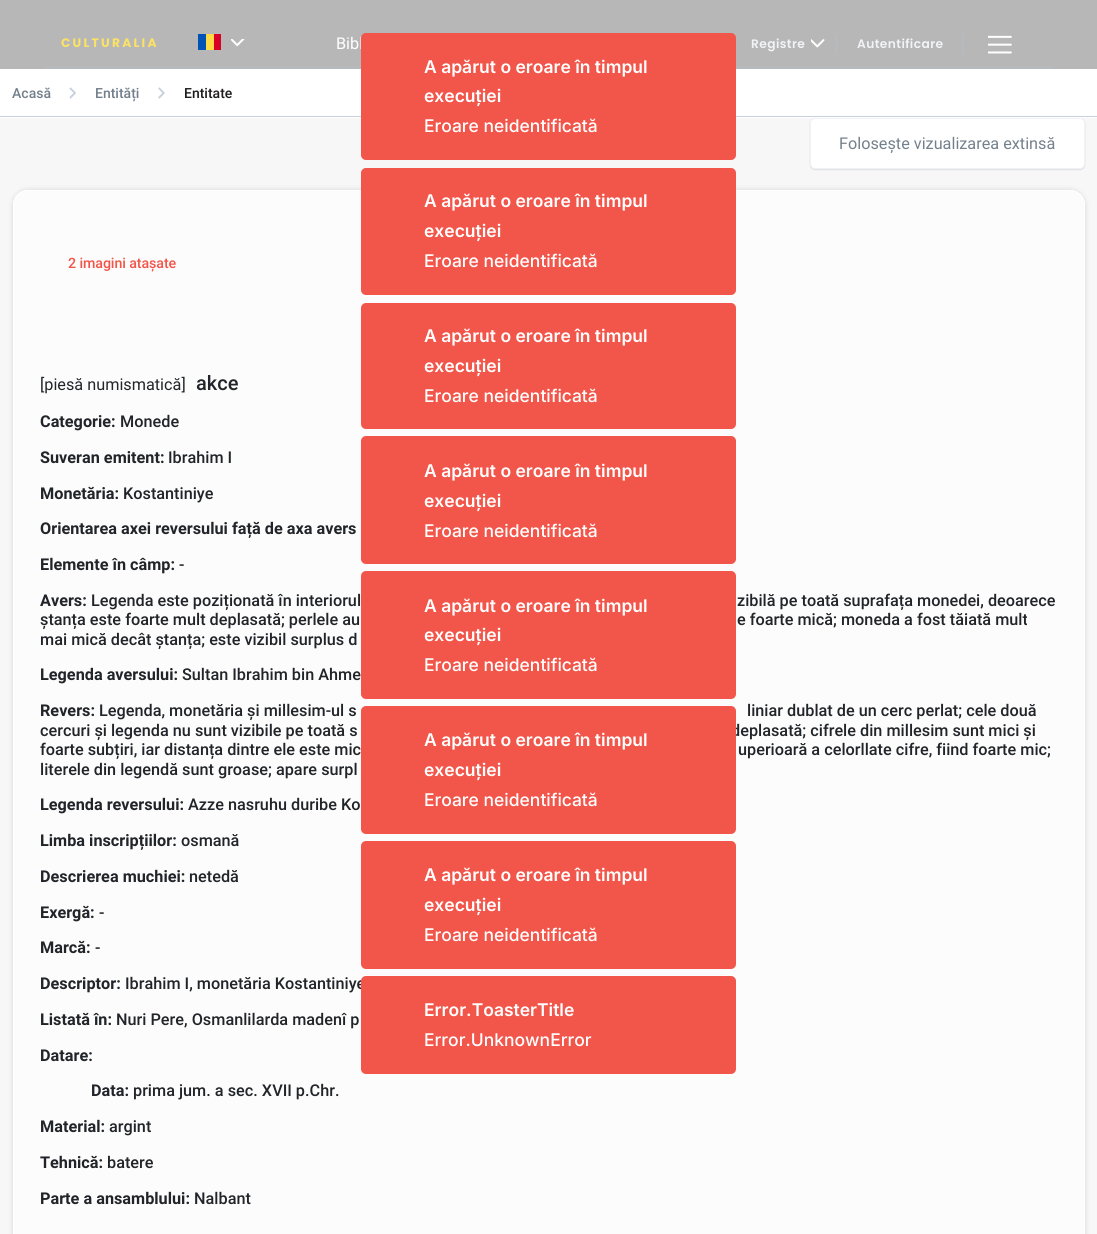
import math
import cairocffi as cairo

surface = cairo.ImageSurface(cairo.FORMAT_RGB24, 1097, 1234)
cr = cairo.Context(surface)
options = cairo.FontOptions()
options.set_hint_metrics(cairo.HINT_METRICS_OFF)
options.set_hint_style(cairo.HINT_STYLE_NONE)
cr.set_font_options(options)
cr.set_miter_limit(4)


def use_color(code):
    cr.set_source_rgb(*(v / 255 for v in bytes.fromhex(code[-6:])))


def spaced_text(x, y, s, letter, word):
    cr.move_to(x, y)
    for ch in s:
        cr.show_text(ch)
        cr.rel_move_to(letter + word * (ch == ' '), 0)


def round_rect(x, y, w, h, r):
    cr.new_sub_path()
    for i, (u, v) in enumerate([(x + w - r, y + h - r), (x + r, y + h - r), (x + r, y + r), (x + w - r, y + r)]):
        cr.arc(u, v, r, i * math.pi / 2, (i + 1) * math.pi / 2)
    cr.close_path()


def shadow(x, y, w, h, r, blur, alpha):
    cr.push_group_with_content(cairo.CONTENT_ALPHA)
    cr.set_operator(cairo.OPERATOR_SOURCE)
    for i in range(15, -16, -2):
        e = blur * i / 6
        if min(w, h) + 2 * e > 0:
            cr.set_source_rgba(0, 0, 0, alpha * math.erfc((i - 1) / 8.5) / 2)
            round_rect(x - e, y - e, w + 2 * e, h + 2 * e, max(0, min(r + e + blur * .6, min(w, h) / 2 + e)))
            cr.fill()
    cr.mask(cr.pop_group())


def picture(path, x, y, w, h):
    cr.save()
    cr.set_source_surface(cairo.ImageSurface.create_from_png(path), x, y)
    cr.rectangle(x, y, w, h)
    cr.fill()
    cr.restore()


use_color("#f7f7f7")
cr.paint()
use_color("#b7b7b7")
cr.rectangle(0, 0, 1097, 69)
cr.fill()
cr.select_font_face("Poppins", cairo.FONT_SLANT_NORMAL, cairo.FONT_WEIGHT_BOLD)
cr.set_font_size(12.25)
use_color("#fce264")
spaced_text(61, 47, "CULTURALIA", 2.25, 0)
use_color("#ffda44")
cr.rectangle(206, 34, 8, 16)
cr.fill()
use_color("#0052b4")
cr.rectangle(198, 34, 8, 16)
cr.fill()
use_color("#d80027")
cr.rectangle(214, 34, 7, 16)
cr.fill()
picture("img1.png", 231, 39, 14, 8)
cr.select_font_face("Roboto")
cr.set_font_size(16.25)
use_color("#ffffff")
cr.move_to(336, 49)
cr.show_text("Bibl")
cr.select_font_face("Poppins SemiBold")
cr.set_font_size(12.25)
use_color("#f1f3f6")
spaced_text(751, 48, "Registre", 0.4, 0)
picture("img2.png", 811, 39, 14, 9)
use_color("#b7babd")
cr.rectangle(835, 34, 3, 20)
cr.fill()
use_color("#f1f3f6")
spaced_text(857, 48, "Autentificare", 0.4, 0)
use_color("#b7babd")
cr.rectangle(961, 34, 3, 20)
cr.fill()
picture("img3.png", 988, 35, 24, 19)
cr.rectangle(45, 66, 1008, 3)
cr.fill()
use_color("#0a1646")
shadow(810, 118, 275, 51, 5, 0.5, 0.06)
shadow(810, 119, 275, 51, 5, 0.5, 0.1)
use_color("#ffffff")
cr.rectangle(0, 69, 1097, 49)
cr.fill()
cr.select_font_face("Roboto Medium")
cr.set_font_size(14)
use_color("#73808c")
cr.move_to(12, 98)
cr.show_text("Acasă")
picture("img4.png", 69, 87, 7, 12)
cr.move_to(95, 98)
cr.show_text("Entități")
picture("img5.png", 158, 87, 7, 12)
use_color("#1e1c1c")
cr.move_to(184, 98)
cr.show_text("Entitate")
use_color("#c7d1de")
cr.rectangle(0, 116, 1097, 1)
cr.fill()
use_color("#ffffff")
round_rect(810.5, 118.5, 274, 50, 4.5)
cr.fill_preserve()
use_color("#f1f2f4")
cr.set_line_width(1)
cr.stroke()
cr.select_font_face("Roboto")
cr.set_font_size(16.25)
use_color("#73808c")
cr.move_to(839, 149)
cr.show_text("Folosește vizualizarea extinsă")
use_color("#000000")
shadow(14, 191, 1070, 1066, 14, 3, 0.2)
use_color("#fcfcfc")
cr.new_path()
cr.move_to(28, 190)
cr.line_to(1070, 190)
cr.curve_to(1078.5, 190, 1085, 196.5, 1085, 205)
cr.line_to(1085, 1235)
cr.line_to(13, 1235)
cr.line_to(13, 205)
cr.curve_to(13, 196.5, 19.5, 190, 28, 190)
cr.close_path()
cr.fill()
round_rect(13.5, 190.5, 1071, 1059, 14.5)
use_color("#ffffff")
cr.stroke()
cr.select_font_face("Roboto Medium")
cr.set_font_size(14.25)
use_color("#f25549")
spaced_text(68, 268, "2 imagini atașate", -0.1, 0)
cr.select_font_face("Roboto")
cr.set_font_size(16.25)
use_color("#212529")
cr.move_to(40, 390)
cr.show_text("[piesă numismatică]")
cr.select_font_face("Roboto Medium")
cr.set_font_size(20)
cr.move_to(196, 390)
cr.show_text("akce")
cr.select_font_face("Roboto", cairo.FONT_SLANT_NORMAL, cairo.FONT_WEIGHT_BOLD)
cr.set_font_size(16.25)
cr.move_to(40, 427)
cr.show_text("Categorie:")
cr.select_font_face("Roboto Medium")
cr.move_to(120, 427)
cr.show_text("Monede")
cr.select_font_face("Roboto", cairo.FONT_SLANT_NORMAL, cairo.FONT_WEIGHT_BOLD)
cr.move_to(40, 463)
cr.show_text("Suveran emitent:")
cr.select_font_face("Roboto Medium")
cr.move_to(168, 463)
cr.show_text("Ibrahim I")
cr.select_font_face("Roboto", cairo.FONT_SLANT_NORMAL, cairo.FONT_WEIGHT_BOLD)
cr.move_to(40, 499)
cr.show_text("Monetăria:")
cr.select_font_face("Roboto Medium")
cr.move_to(123, 499)
cr.show_text("Kostantiniye")
cr.select_font_face("Roboto", cairo.FONT_SLANT_NORMAL, cairo.FONT_WEIGHT_BOLD)
cr.move_to(40, 534)
cr.show_text("Orientarea axei reversului față de axa avers")
cr.move_to(40, 570)
cr.show_text("Elemente în câmp:")
cr.select_font_face("Roboto Medium")
cr.move_to(179, 570)
cr.show_text("-")
cr.select_font_face("Roboto", cairo.FONT_SLANT_NORMAL, cairo.FONT_WEIGHT_BOLD)
cr.move_to(40, 606)
cr.show_text("Avers:")
cr.select_font_face("Roboto Medium")
cr.move_to(91, 606)
cr.show_text("Legenda este poziționată în interiorul")
cr.move_to(737, 606)
cr.show_text("zibilă pe toată suprafața monedei, deoarece")
cr.move_to(40, 625)
cr.show_text("ștanța este foarte mult deplasată; perlele au")
cr.move_to(737, 625)
cr.show_text("e foarte mică; moneda a fost tăiată mult")
cr.move_to(40, 645)
cr.show_text("mai mică decât ștanța; este vizibil surplus d")
cr.select_font_face("Roboto", cairo.FONT_SLANT_NORMAL, cairo.FONT_WEIGHT_BOLD)
cr.move_to(40, 680)
cr.show_text("Legenda aversului:")
cr.select_font_face("Roboto Medium")
cr.move_to(182, 680)
cr.show_text("Sultan Ibrahim bin Ahme")
cr.select_font_face("Roboto", cairo.FONT_SLANT_NORMAL, cairo.FONT_WEIGHT_BOLD)
cr.move_to(40, 716)
cr.show_text("Revers:")
cr.select_font_face("Roboto Medium")
cr.move_to(99, 716)
cr.show_text("Legenda, monetăria și millesim-ul s")
cr.move_to(747, 716)
cr.show_text("liniar dublat de un cerc perlat; cele două")
cr.move_to(40, 736)
cr.show_text("cercuri și legenda nu sunt vizibile pe toată s")
cr.move_to(731, 736)
cr.show_text("deplasată; cifrele din millesim sunt mici și")
cr.move_to(40, 755)
cr.show_text("foarte subțiri, iar distanța dintre ele este mic")
cr.move_to(738, 755)
cr.show_text("uperioară a celorllate cifre, fiind foarte mic;")
cr.move_to(40, 775)
cr.show_text("literele din legendă sunt groase; apare surpl")
cr.select_font_face("Roboto", cairo.FONT_SLANT_NORMAL, cairo.FONT_WEIGHT_BOLD)
cr.move_to(40, 810)
cr.show_text("Legenda reversului:")
cr.select_font_face("Roboto Medium")
cr.move_to(188, 810)
cr.show_text("Azze nasruhu duribe Ko")
cr.select_font_face("Roboto", cairo.FONT_SLANT_NORMAL, cairo.FONT_WEIGHT_BOLD)
cr.move_to(40, 846)
cr.show_text("Limba inscripțiilor:")
cr.select_font_face("Roboto Medium")
cr.move_to(181, 846)
cr.show_text("osmană")
cr.select_font_face("Roboto", cairo.FONT_SLANT_NORMAL, cairo.FONT_WEIGHT_BOLD)
cr.move_to(40, 882)
cr.show_text("Descrierea muchiei:")
cr.select_font_face("Roboto Medium")
cr.move_to(189, 882)
cr.show_text("netedă")
cr.select_font_face("Roboto", cairo.FONT_SLANT_NORMAL, cairo.FONT_WEIGHT_BOLD)
cr.move_to(40, 918)
cr.show_text("Exergă:")
cr.select_font_face("Roboto Medium")
cr.move_to(99, 918)
cr.show_text("-")
cr.select_font_face("Roboto", cairo.FONT_SLANT_NORMAL, cairo.FONT_WEIGHT_BOLD)
cr.move_to(40, 953)
cr.show_text("Marcă:")
cr.select_font_face("Roboto Medium")
cr.move_to(95, 953)
cr.show_text("-")
cr.select_font_face("Roboto", cairo.FONT_SLANT_NORMAL, cairo.FONT_WEIGHT_BOLD)
cr.move_to(40, 989)
cr.show_text("Descriptor:")
cr.select_font_face("Roboto Medium")
cr.move_to(125, 989)
cr.show_text("Ibrahim I, monetăria Kostantiniye")
cr.select_font_face("Roboto", cairo.FONT_SLANT_NORMAL, cairo.FONT_WEIGHT_BOLD)
cr.move_to(40, 1025)
cr.show_text("Listată în:")
cr.select_font_face("Roboto Medium")
cr.move_to(116, 1025)
cr.show_text("Nuri Pere, Osmanlilarda madenî p")
cr.select_font_face("Roboto", cairo.FONT_SLANT_NORMAL, cairo.FONT_WEIGHT_BOLD)
cr.move_to(40, 1061)
cr.show_text("Datare:")
cr.move_to(91, 1096)
cr.show_text("Data:")
cr.select_font_face("Roboto Medium")
cr.move_to(133, 1096)
cr.show_text("prima jum. a sec. XVII p.Chr.")
cr.select_font_face("Roboto", cairo.FONT_SLANT_NORMAL, cairo.FONT_WEIGHT_BOLD)
cr.move_to(40, 1132)
cr.show_text("Material:")
cr.select_font_face("Roboto Medium")
cr.move_to(109, 1132)
cr.show_text("argint")
cr.select_font_face("Roboto", cairo.FONT_SLANT_NORMAL, cairo.FONT_WEIGHT_BOLD)
cr.move_to(40, 1168)
cr.show_text("Tehnică:")
cr.select_font_face("Roboto Medium")
cr.move_to(107, 1168)
cr.show_text("batere")
cr.select_font_face("Roboto", cairo.FONT_SLANT_NORMAL, cairo.FONT_WEIGHT_BOLD)
cr.move_to(40, 1204)
cr.show_text("Parte a ansamblului:")
cr.select_font_face("Roboto Medium")
cr.move_to(194, 1204)
cr.show_text("Nalbant")
use_color("#f25549")
round_rect(361, 33, 375, 127, 5)
cr.fill()
cr.select_font_face("Inter SemiBold")
cr.set_font_size(17.5)
use_color("#ffffff")
cr.move_to(424, 73)
cr.show_text("A apărut o eroare în timpul")
cr.move_to(424, 102)
cr.show_text("execuției")
cr.select_font_face("Inter Medium")
cr.move_to(424, 132)
cr.show_text("Eroare neidentificată")
use_color("#f25549")
round_rect(361, 168, 375, 127, 5)
cr.fill()
cr.select_font_face("Inter SemiBold")
use_color("#ffffff")
cr.move_to(424, 207)
cr.show_text("A apărut o eroare în timpul")
cr.move_to(424, 237)
cr.show_text("execuției")
cr.select_font_face("Inter Medium")
cr.move_to(424, 267)
cr.show_text("Eroare neidentificată")
use_color("#f25549")
round_rect(361, 303, 375, 126, 5)
cr.fill()
cr.select_font_face("Inter SemiBold")
use_color("#ffffff")
cr.move_to(424, 342)
cr.show_text("A apărut o eroare în timpul")
cr.move_to(424, 372)
cr.show_text("execuției")
cr.select_font_face("Inter Medium")
cr.move_to(424, 402)
cr.show_text("Eroare neidentificată")
use_color("#f25549")
round_rect(361, 436, 375, 128, 5)
cr.fill()
cr.select_font_face("Inter SemiBold")
use_color("#ffffff")
cr.move_to(424, 477)
cr.show_text("A apărut o eroare în timpul")
cr.move_to(424, 507)
cr.show_text("execuției")
cr.select_font_face("Inter Medium")
cr.move_to(424, 537)
cr.show_text("Eroare neidentificată")
use_color("#f25549")
round_rect(361, 571, 375, 128, 5)
cr.fill()
cr.select_font_face("Inter SemiBold")
use_color("#ffffff")
cr.move_to(424, 612)
cr.show_text("A apărut o eroare în timpul")
cr.move_to(424, 641)
cr.show_text("execuției")
cr.select_font_face("Inter Medium")
cr.move_to(424, 671)
cr.show_text("Eroare neidentificată")
use_color("#f25549")
round_rect(361, 706, 375, 128, 5)
cr.fill()
cr.select_font_face("Inter SemiBold")
use_color("#ffffff")
cr.move_to(424, 746)
cr.show_text("A apărut o eroare în timpul")
cr.move_to(424, 776)
cr.show_text("execuției")
cr.select_font_face("Inter Medium")
cr.move_to(424, 806)
cr.show_text("Eroare neidentificată")
use_color("#f25549")
round_rect(361, 841, 375, 128, 5)
cr.fill()
cr.select_font_face("Inter SemiBold")
use_color("#ffffff")
cr.move_to(424, 881)
cr.show_text("A apărut o eroare în timpul")
cr.move_to(424, 911)
cr.show_text("execuției")
cr.select_font_face("Inter Medium")
cr.move_to(424, 941)
cr.show_text("Eroare neidentificată")
use_color("#f25549")
round_rect(361, 976, 375, 98, 5)
cr.fill()
cr.select_font_face("Inter SemiBold")
use_color("#ffffff")
cr.move_to(424, 1016)
cr.show_text("Error.ToasterTitle")
cr.select_font_face("Inter Medium")
cr.move_to(424, 1046)
cr.show_text("Error.UnknownError")
surface.write_to_png("result.png")
